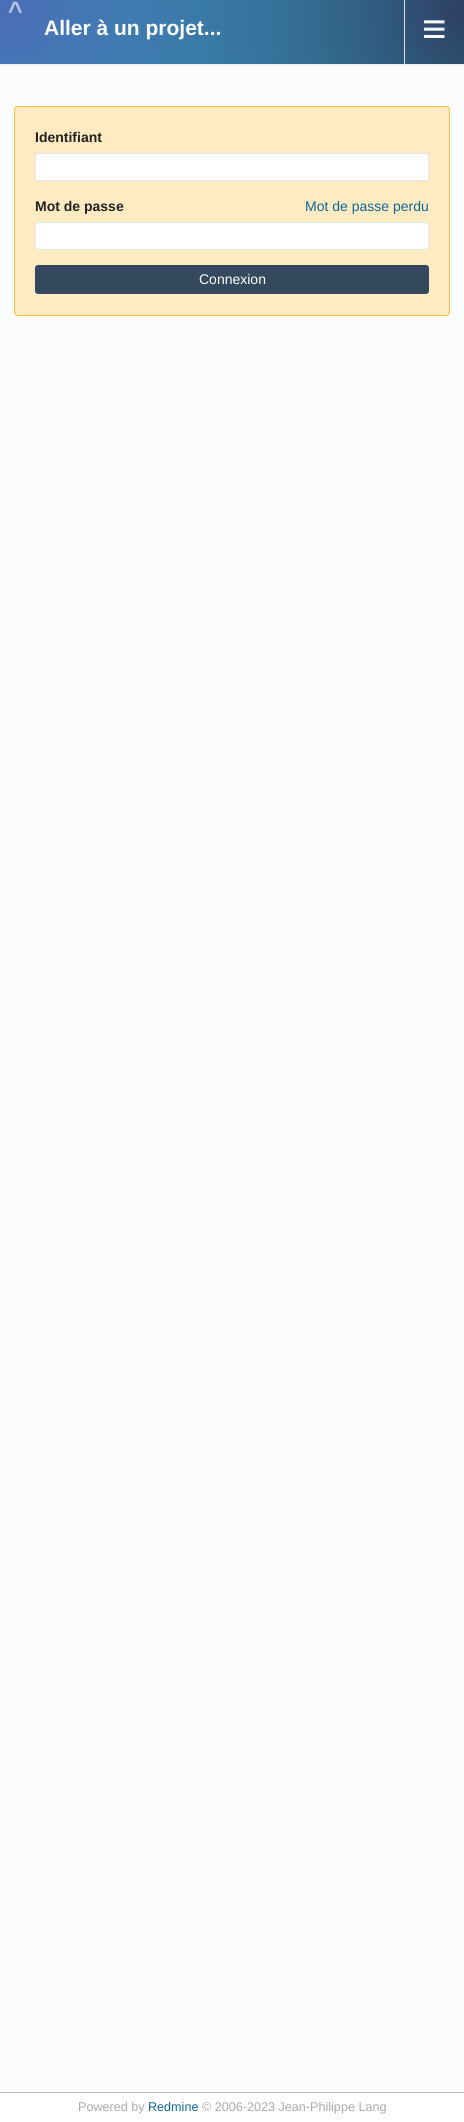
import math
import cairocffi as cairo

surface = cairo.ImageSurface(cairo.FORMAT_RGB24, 464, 2122)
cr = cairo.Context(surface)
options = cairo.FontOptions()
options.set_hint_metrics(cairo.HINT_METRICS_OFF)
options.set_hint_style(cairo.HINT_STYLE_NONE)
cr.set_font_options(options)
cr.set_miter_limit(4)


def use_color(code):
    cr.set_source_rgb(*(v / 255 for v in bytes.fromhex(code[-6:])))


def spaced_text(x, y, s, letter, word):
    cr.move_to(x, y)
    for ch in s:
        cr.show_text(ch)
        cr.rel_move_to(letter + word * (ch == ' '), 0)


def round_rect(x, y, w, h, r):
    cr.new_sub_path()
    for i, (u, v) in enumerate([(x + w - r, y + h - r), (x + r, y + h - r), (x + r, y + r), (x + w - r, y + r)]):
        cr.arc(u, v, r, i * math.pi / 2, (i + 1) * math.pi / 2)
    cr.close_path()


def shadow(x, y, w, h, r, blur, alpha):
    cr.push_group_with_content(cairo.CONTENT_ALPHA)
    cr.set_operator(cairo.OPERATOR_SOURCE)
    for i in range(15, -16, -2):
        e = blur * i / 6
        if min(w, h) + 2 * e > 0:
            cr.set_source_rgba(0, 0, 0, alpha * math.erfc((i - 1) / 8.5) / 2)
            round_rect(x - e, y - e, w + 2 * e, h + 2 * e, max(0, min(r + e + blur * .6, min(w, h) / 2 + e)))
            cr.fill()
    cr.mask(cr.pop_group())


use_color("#ffffff")
cr.paint()
use_color("#fafcfe")
cr.rectangle(0, 64, 464, 2028)
cr.fill()
use_color("#000000")
shadow(0, 1, 464, 64, 0, 1, 0.1)
gradient = cairo.RadialGradient(455, 13, 0, 455, 13, 458)
gradient.add_color_stop_rgba(0, 0.18, 0.251, 0.388, 1)
gradient.add_color_stop_rgba(1, 0.098, 0.784, 0.71, 1)
cr.set_source(gradient)
cr.rectangle(0, 0, 464, 64)
cr.fill()
gradient = cairo.RadialGradient(9, 13, 0, 9, 13, 458)
gradient.add_color_stop_rgba(0, 0.294, 0.424, 0.718, 1)
gradient.add_color_stop_rgba(1, 0.294, 0.424, 0.718, 0)
cr.set_source(gradient)
cr.rectangle(0, 0, 456, 64)
cr.fill()
cr.select_font_face("Liberation Sans", cairo.FONT_SLANT_NORMAL, cairo.FONT_WEIGHT_BOLD)
cr.set_font_size(25)
use_color("#b7c5e2")
spaced_text(8, 19, "^", 4, 0)
cr.set_font_size(21)
use_color("#ffffff")
cr.move_to(44, 35)
cr.show_text("Aller à un projet...")
use_color("#dddddd")
cr.rectangle(404, 0, 1, 64)
cr.fill()
cr.select_font_face("Liberation Sans")
cr.set_font_size(42)
use_color("#f8f8f8")
cr.move_to(422, 43)
cr.show_text("≡")
use_color("#ffebc1")
round_rect(14.5, 106.5, 435, 209, 3.5)
cr.fill_preserve()
use_color("#fdbf3b")
cr.set_line_width(1)
cr.stroke()
cr.select_font_face("Liberation Sans", cairo.FONT_SLANT_NORMAL, cairo.FONT_WEIGHT_BOLD)
cr.set_font_size(14)
use_color("#222222")
cr.move_to(35, 142)
cr.show_text("Identifiant")
use_color("#ffffff")
round_rect(35.5, 153.5, 393, 27, 2.5)
cr.fill_preserve()
use_color("#dfe8f1")
cr.stroke()
use_color("#222222")
cr.move_to(35, 211)
cr.show_text("Mot de passe")
cr.select_font_face("Liberation Sans")
use_color("#116699")
cr.move_to(305, 211)
cr.show_text("Mot de passe perdu")
use_color("#ffffff")
round_rect(35.5, 222.5, 393, 27, 2.5)
cr.fill_preserve()
use_color("#dfe8f1")
cr.stroke()
use_color("#34495e")
round_rect(35.5, 265.5, 393, 28, 2.5)
cr.fill_preserve()
cr.stroke()
use_color("#ffffff")
cr.move_to(199, 284)
cr.show_text("Connexion")
use_color("#bbbbbb")
cr.rectangle(0, 2092, 464, 1)
cr.fill()
cr.set_font_size(12.6)
use_color("#aaaaaa")
cr.move_to(78, 2111)
cr.show_text("Powered by")
use_color("#116699")
cr.move_to(148, 2111)
cr.show_text("Redmine")
use_color("#aaaaaa")
cr.move_to(202, 2111)
cr.show_text("© 2006-2023 Jean-Philippe Lang")
surface.write_to_png("result.png")
